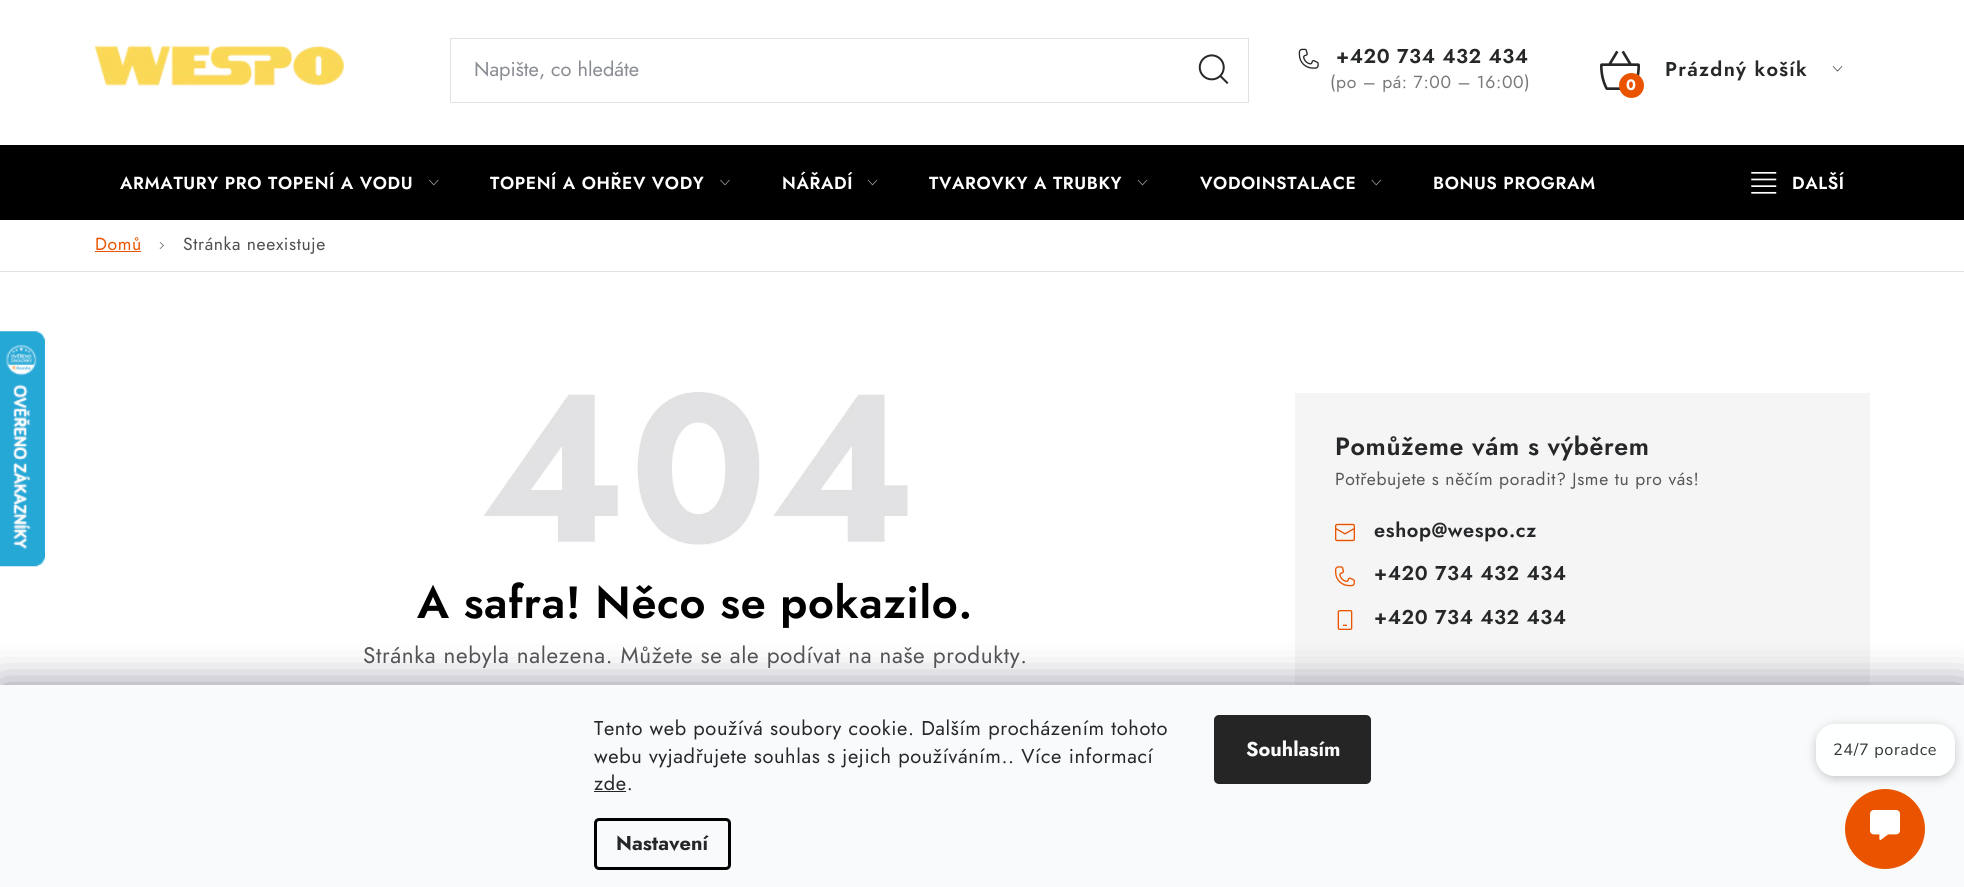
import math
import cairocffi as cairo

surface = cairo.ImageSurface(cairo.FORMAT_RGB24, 1964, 887)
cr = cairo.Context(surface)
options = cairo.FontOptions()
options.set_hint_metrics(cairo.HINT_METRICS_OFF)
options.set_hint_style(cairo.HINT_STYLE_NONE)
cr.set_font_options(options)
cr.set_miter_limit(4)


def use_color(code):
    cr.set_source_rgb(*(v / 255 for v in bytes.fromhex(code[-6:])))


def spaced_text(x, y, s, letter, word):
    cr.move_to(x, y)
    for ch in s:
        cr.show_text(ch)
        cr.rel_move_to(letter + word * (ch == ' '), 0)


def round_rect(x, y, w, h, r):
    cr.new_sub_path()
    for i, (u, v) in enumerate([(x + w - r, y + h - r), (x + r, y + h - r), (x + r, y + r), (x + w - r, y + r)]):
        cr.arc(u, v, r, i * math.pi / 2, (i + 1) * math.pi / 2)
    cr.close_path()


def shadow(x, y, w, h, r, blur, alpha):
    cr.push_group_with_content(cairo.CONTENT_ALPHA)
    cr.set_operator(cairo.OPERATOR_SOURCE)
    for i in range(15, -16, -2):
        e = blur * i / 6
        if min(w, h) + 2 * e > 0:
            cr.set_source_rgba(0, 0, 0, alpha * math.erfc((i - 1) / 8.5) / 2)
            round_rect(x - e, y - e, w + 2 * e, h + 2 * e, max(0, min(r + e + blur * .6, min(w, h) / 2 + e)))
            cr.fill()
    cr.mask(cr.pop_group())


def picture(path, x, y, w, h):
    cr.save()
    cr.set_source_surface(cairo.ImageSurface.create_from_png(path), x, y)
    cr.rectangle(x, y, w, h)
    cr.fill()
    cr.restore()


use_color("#ffffff")
cr.paint()
picture("img1.png", 0, 331, 45, 236)
picture("img2.png", 95, 45, 249, 41)
cr.rectangle(450.5, 38.5, 798, 64)
use_color("#e1e1e2")
cr.set_line_width(1)
cr.stroke()
cr.select_font_face("Jost")
cr.set_font_size(20)
use_color("#888c92")
cr.move_to(474, 76)
cr.show_text("Napište, co hledáte")
picture("img3.png", 1198, 54, 31, 30)
picture("img4.png", 1298, 48, 21, 21)
cr.select_font_face("Jost SemiBold")
use_color("#252729")
spaced_text(1336, 63, "+420 734 432 434", 0.62, 0)
cr.select_font_face("Jost")
cr.set_font_size(17.5)
use_color("#777879")
spaced_text(1330, 88, "(po – pá: 7:00 – 16:00)", 0.62, 0)
picture("img5.png", 1600, 50, 40, 40)
cr.select_font_face("Jost SemiBold")
cr.set_font_size(20)
use_color("#252729")
spaced_text(1665, 76, "Prázdný košík", 1.25, 0)
use_color("#ea5400")
cr.new_path()
cr.arc(1631.5, 85.5, 12.5, 0, 2 * math.pi)
cr.fill()
cr.select_font_face("Jost", cairo.FONT_SLANT_NORMAL, cairo.FONT_WEIGHT_BOLD)
cr.set_font_size(15)
use_color("#ffffff")
cr.move_to(1626, 90)
cr.show_text("0")
picture("img6.png", 1832, 66, 11, 6)
use_color("#000000")
cr.rectangle(0, 145, 1964, 75)
cr.fill()
cr.select_font_face("Jost SemiBold")
cr.set_font_size(17.5)
use_color("#ffffff")
spaced_text(120, 189, "ARMATURY PRO TOPENÍ A VODU", 0.62, 0)
picture("img7.png", 429, 179, 10, 7)
spaced_text(490, 189, "TOPENÍ A OHŘEV VODY", 0.62, 0)
picture("img8.png", 720, 179, 10, 7)
spaced_text(782, 189, "NÁŘADÍ", 0.62, 0)
picture("img9.png", 867, 179, 11, 7)
spaced_text(929, 189, "TVAROVKY A TRUBKY", 0.62, 0)
picture("img9.png", 1137, 179, 11, 7)
spaced_text(1200, 189, "VODOINSTALACE", 0.62, 0)
picture("img10.png", 1371, 179, 10, 7)
spaced_text(1433, 189, "BONUS PROGRAM", 0.62, 0)
picture("img11.png", 1751, 171, 26, 23)
spaced_text(1792, 189, "DALŠÍ", 0.62, 0)
use_color("#e1e1e2")
cr.rectangle(0, 271, 1964, 1)
cr.fill()
cr.select_font_face("Jost")
use_color("#ea5400")
spaced_text(95, 250, "Domů", 0.62, 0)
cr.rectangle(95, 251, 46, 1)
cr.fill()
picture("img12.png", 159, 242, 5, 7)
use_color("#4f4f4f")
spaced_text(183, 250, "Stránka neexistuje", 0.62, 0)
picture("img13.png", 483, 392, 425, 153)
cr.select_font_face("Jost SemiBold")
cr.set_font_size(45)
use_color("#000000")
spaced_text(417, 618, "A safra! Něco se pokazilo.", 0.62, 0)
use_color("#f5f5f5")
cr.rectangle(1295, 393, 575, 292)
cr.fill()
cr.set_font_size(25)
use_color("#252729")
spaced_text(1335, 455, "Pomůžeme vám s výběrem", 0.62, 0)
cr.select_font_face("Jost")
cr.set_font_size(17.5)
use_color("#555658")
spaced_text(1335, 485, "Potřebujete s něčím poradit? Jsme tu pro vás!", 0.62, 0)
picture("img14.png", 1335, 523, 20, 19)
cr.select_font_face("Jost SemiBold")
cr.set_font_size(20)
use_color("#252729")
spaced_text(1374, 537, "eshop@wespo.cz", 0.62, 0)
picture("img15.png", 1335, 566, 20, 21)
spaced_text(1374, 580, "+420 734 432 434", 0.62, 0)
picture("img16.png", 1337, 610, 16, 20)
spaced_text(1374, 624, "+420 734 432 434", 0.62, 0)
cr.select_font_face("Jost")
cr.set_font_size(22.5)
use_color("#555658")
spaced_text(363, 663, "Stránka nebyla nalezena. Můžete se ale podívat na naše produkty.", 0.62, 0)
use_color("#1b1939")
shadow(0, 685, 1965, 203, 0, 19, 0.5)
use_color("#f8fafb")
cr.rectangle(0, 685, 1964, 202)
cr.fill()
cr.set_font_size(20)
use_color("#252729")
spaced_text(594, 735, "Tento web používá soubory cookie. Dalším procházením tohoto", 0.62, 0)
spaced_text(594, 763, "webu vyjadřujete souhlas s jejich používáním.. Více informací", 0.62, 0)
spaced_text(594, 790, "zde.", 0.62, 0)
use_color("#252525")
cr.rectangle(594, 791, 32, 1)
cr.fill()
round_rect(595.5, 819.5, 134, 49, 3.5)
use_color("#000000")
cr.set_line_width(3)
cr.stroke()
cr.select_font_face("Jost", cairo.FONT_SLANT_NORMAL, cairo.FONT_WEIGHT_BOLD)
use_color("#252729")
cr.move_to(616, 850)
cr.show_text("Nastavení")
use_color("#252525")
round_rect(1214, 715, 157, 69, 5)
cr.fill()
use_color("#f8fafb")
cr.move_to(1246, 756)
cr.show_text("Souhlasím")
cr.save()
cr.set_fill_rule(cairo.FILL_RULE_EVEN_ODD)
cr.new_path()
cr.move_to(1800, 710)
cr.line_to(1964, 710)
cr.line_to(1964, 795)
cr.line_to(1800, 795)
cr.close_path()
cr.move_to(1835, 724)
cr.line_to(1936, 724)
cr.curve_to(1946.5, 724, 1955, 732.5, 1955, 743)
cr.line_to(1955, 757)
cr.curve_to(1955, 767.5, 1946.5, 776, 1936, 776)
cr.line_to(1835, 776)
cr.curve_to(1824.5, 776, 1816, 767.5, 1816, 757)
cr.line_to(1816, 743)
cr.curve_to(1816, 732.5, 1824.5, 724, 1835, 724)
cr.close_path()
cr.clip()
use_color("#000000")
shadow(1816, 726, 139, 53, 19, 5, 0.2)
cr.restore()
cr.set_source_rgba(1, 1, 1, 0.9)
round_rect(1816, 724, 139, 52, 19)
cr.fill()
cr.select_font_face("Nunito")
cr.set_font_size(16.25)
use_color("#333333")
spaced_text(1833, 755, "24/7 poradce", 0.62, 0)
use_color("#ea5400")
cr.new_path()
cr.arc(1885, 829, 37.5, 0, 2 * math.pi)
cr.fill_preserve()
cr.set_line_width(5)
cr.stroke()
picture("img17.png", 1870, 810, 30, 30)
surface.write_to_png("result.png")
